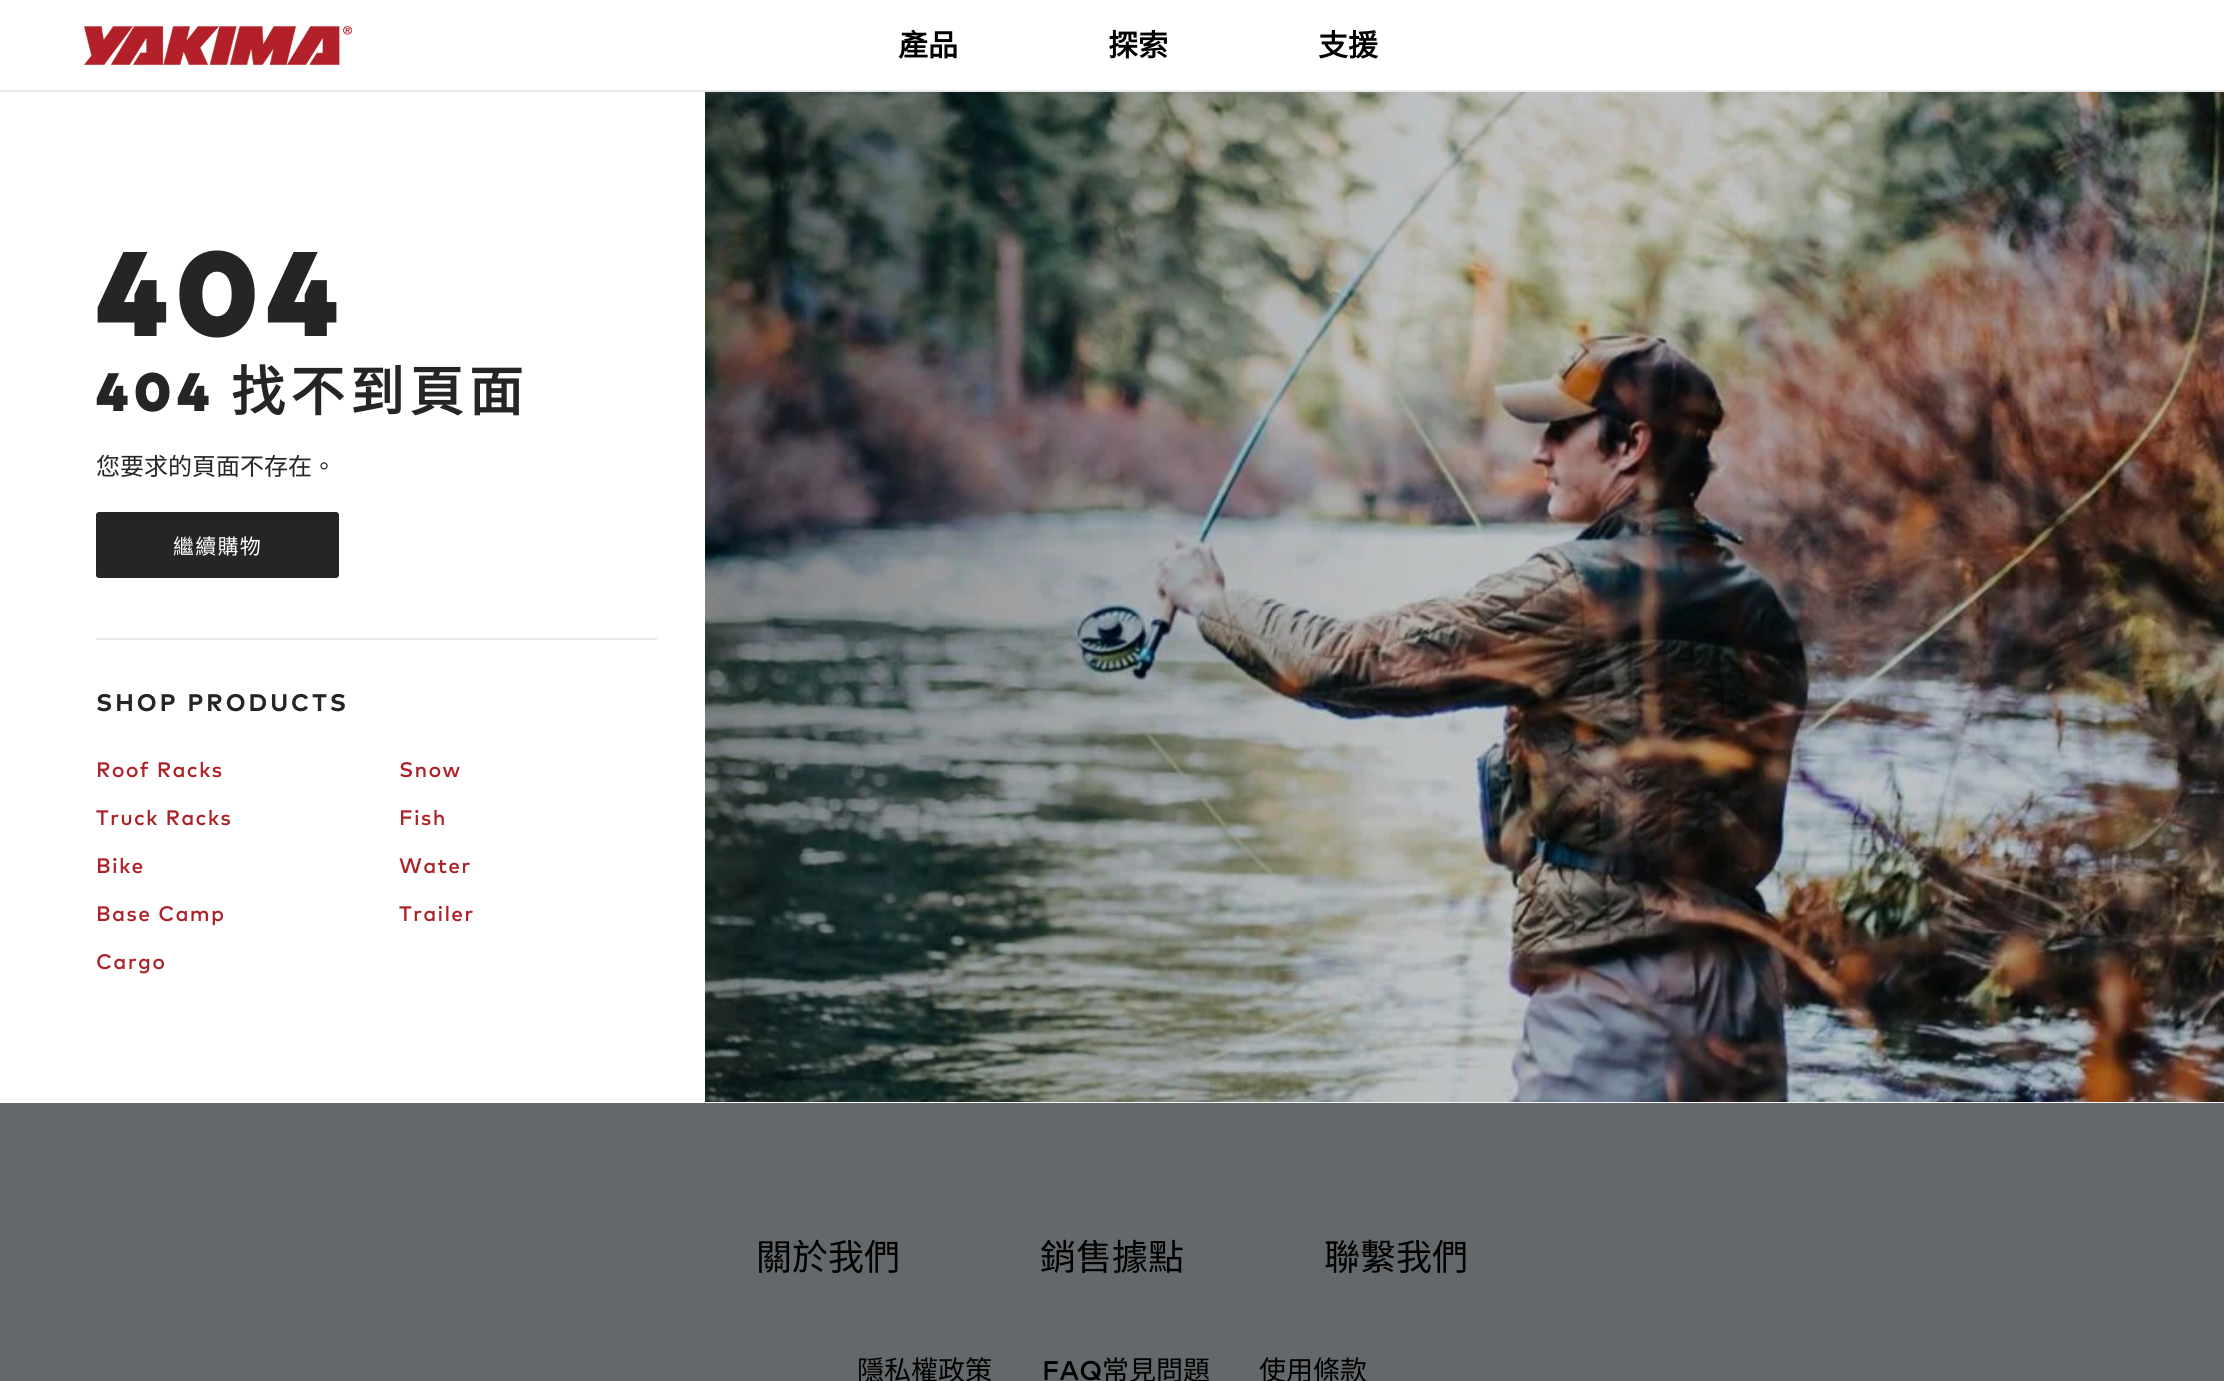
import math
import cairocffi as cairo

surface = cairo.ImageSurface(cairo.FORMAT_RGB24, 2224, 1381)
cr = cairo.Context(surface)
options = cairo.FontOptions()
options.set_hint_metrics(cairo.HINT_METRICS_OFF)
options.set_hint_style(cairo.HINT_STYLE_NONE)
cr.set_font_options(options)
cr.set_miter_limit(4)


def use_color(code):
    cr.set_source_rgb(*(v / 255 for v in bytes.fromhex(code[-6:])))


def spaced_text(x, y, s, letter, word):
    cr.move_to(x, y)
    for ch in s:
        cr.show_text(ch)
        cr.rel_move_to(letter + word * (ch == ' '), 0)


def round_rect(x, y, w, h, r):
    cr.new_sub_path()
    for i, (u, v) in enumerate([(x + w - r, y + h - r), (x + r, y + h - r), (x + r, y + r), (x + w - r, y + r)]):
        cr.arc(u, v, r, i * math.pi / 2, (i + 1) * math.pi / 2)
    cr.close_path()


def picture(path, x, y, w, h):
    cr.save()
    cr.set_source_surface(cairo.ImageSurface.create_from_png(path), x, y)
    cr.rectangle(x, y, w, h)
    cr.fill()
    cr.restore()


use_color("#f7f7f7")
cr.paint()
use_color("#e8e9eb")
cr.rectangle(0, 90, 2224, 2)
cr.fill()
use_color("#ffffff")
cr.rectangle(0, 0, 2224, 90)
cr.fill()
picture("img1.png", 84, 25, 268, 40)
cr.select_font_face("Noto Sans CJK TC", cairo.FONT_SLANT_NORMAL, cairo.FONT_WEIGHT_BOLD)
cr.set_font_size(30)
use_color("#000000")
cr.move_to(898, 56)
cr.show_text("產品")
cr.move_to(1108, 56)
cr.show_text("探索")
cr.move_to(1318, 56)
cr.show_text("支援")
use_color("#ffffff")
cr.rectangle(0, 92, 705, 1011)
cr.fill()
cr.select_font_face("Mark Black")
cr.set_font_size(120)
use_color("#252525")
spaced_text(96, 336, "404", 7.5, 0)
cr.set_font_size(54)
spaced_text(96, 411, "404", 5.5, 0)
cr.select_font_face("Noto Sans CJK TC", cairo.FONT_SLANT_NORMAL, cairo.FONT_WEIGHT_BOLD)
spaced_text(231, 411, "找不到頁面", 5.5, 0)
cr.select_font_face("Noto Sans CJK TC")
cr.set_font_size(24)
cr.move_to(96, 475)
cr.show_text("您要求的頁面不存在。")
round_rect(96, 512, 243, 66, 3)
cr.fill()
cr.set_font_size(21)
use_color("#ffffff")
spaced_text(173, 554, "繼續購物", 1.25, 0)
use_color("#e8e9eb")
cr.rectangle(96, 638, 561, 2)
cr.fill()
cr.select_font_face("Mark", cairo.FONT_SLANT_NORMAL, cairo.FONT_WEIGHT_BOLD)
cr.set_font_size(24)
use_color("#252525")
spaced_text(96, 711, "SHOP PRODUCTS", 3, 0)
cr.select_font_face("Mark Medium")
cr.set_font_size(21)
use_color("#ab2328")
spaced_text(96, 777, "Roof Racks", 1.25, 0)
spaced_text(96, 825, "Truck Racks", 1.25, 0)
spaced_text(96, 873, "Bike", 1.25, 0)
spaced_text(96, 921, "Base Camp", 1.25, 0)
spaced_text(96, 969, "Cargo", 1.25, 0)
spaced_text(399, 777, "Snow", 1.25, 0)
spaced_text(399, 825, "Fish", 1.25, 0)
spaced_text(399, 873, "Water", 1.25, 0)
spaced_text(399, 921, "Trailer", 1.25, 0)
picture("img2.png", 705, 92, 1519, 1010)
use_color("#64686b")
cr.rectangle(0, 1103, 2224, 278)
cr.fill()
cr.select_font_face("Noto Sans CJK TC")
cr.set_font_size(36)
use_color("#000000")
cr.move_to(756, 1270)
cr.show_text("關於我們")
cr.move_to(1040, 1270)
cr.show_text("銷售據點")
cr.move_to(1324, 1270)
cr.show_text("聯繫我們")
cr.set_font_size(27)
cr.move_to(857, 1380)
cr.show_text("隱私權政策")
cr.select_font_face("Mark Medium")
cr.move_to(1042, 1380)
cr.show_text("FAQ")
cr.select_font_face("Noto Sans CJK TC")
cr.move_to(1102, 1380)
cr.show_text("常見問題")
cr.move_to(1259, 1380)
cr.show_text("使用條款")
surface.write_to_png("result.png")
